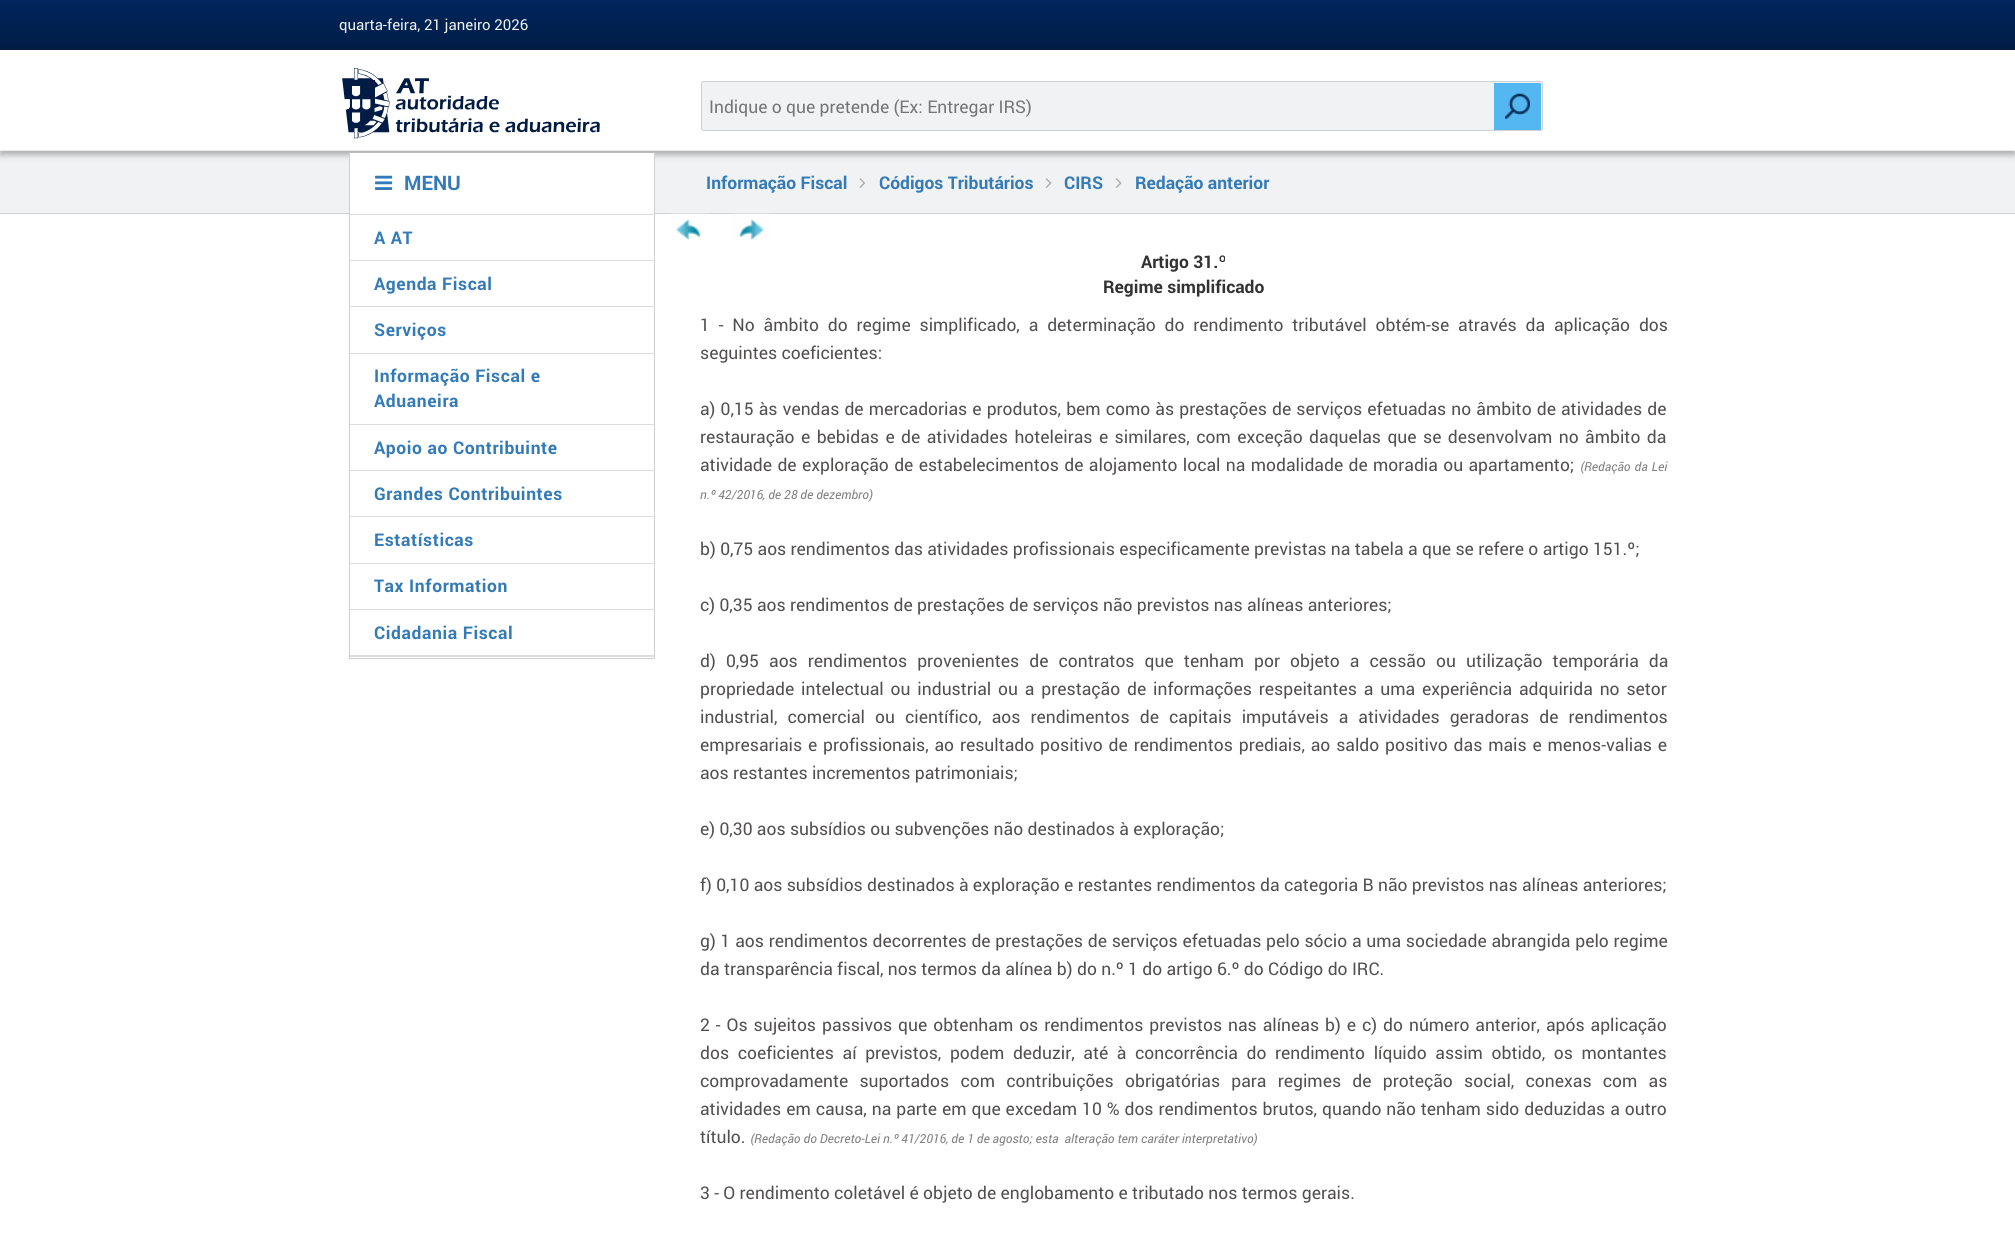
import math
import cairocffi as cairo

surface = cairo.ImageSurface(cairo.FORMAT_RGB24, 2015, 1243)
cr = cairo.Context(surface)
options = cairo.FontOptions()
options.set_hint_metrics(cairo.HINT_METRICS_OFF)
options.set_hint_style(cairo.HINT_STYLE_NONE)
cr.set_font_options(options)
cr.set_miter_limit(4)


def use_color(code):
    cr.set_source_rgb(*(v / 255 for v in bytes.fromhex(code[-6:])))


def spaced_text(x, y, s, letter, word):
    cr.move_to(x, y)
    for ch in s:
        cr.show_text(ch)
        cr.rel_move_to(letter + word * (ch == ' '), 0)


def round_rect(x, y, w, h, r):
    cr.new_sub_path()
    for i, (u, v) in enumerate([(x + w - r, y + h - r), (x + r, y + h - r), (x + r, y + r), (x + w - r, y + r)]):
        cr.arc(u, v, r, i * math.pi / 2, (i + 1) * math.pi / 2)
    cr.close_path()


def shadow(x, y, w, h, r, blur, alpha):
    cr.push_group_with_content(cairo.CONTENT_ALPHA)
    cr.set_operator(cairo.OPERATOR_SOURCE)
    for i in range(15, -16, -2):
        e = blur * i / 6
        if min(w, h) + 2 * e > 0:
            cr.set_source_rgba(0, 0, 0, alpha * math.erfc((i - 1) / 8.5) / 2)
            round_rect(x - e, y - e, w + 2 * e, h + 2 * e, max(0, min(r + e + blur * .6, min(w, h) / 2 + e)))
            cr.fill()
    cr.mask(cr.pop_group())


def picture(path, x, y, w, h):
    cr.save()
    cr.set_source_surface(cairo.ImageSurface.create_from_png(path), x, y)
    cr.rectangle(x, y, w, h)
    cr.fill()
    cr.restore()


use_color("#ffffff")
cr.paint()
gradient = cairo.LinearGradient(1008, 0, 1008, 50)
gradient.add_color_stop_rgba(0, 0, 0.149, 0.369, 1)
gradient.add_color_stop_rgba(1, 0, 0.11, 0.267, 1)
cr.set_source(gradient)
cr.rectangle(0, 0, 2015, 50)
cr.fill()
cr.select_font_face("Roboto")
cr.set_font_size(15)
use_color("#f0f2f3")
cr.move_to(339, 30)
cr.show_text("quarta-feira, 21 janeiro 2026")
cr.rectangle(0, 151, 2015, 62)
cr.fill()
cr.save()
cr.set_fill_rule(cairo.FILL_RULE_EVEN_ODD)
cr.new_path()
cr.move_to(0, 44)
cr.line_to(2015, 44)
cr.line_to(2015, 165)
cr.line_to(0, 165)
cr.close_path()
cr.move_to(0, 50)
cr.line_to(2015, 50)
cr.line_to(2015, 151)
cr.line_to(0, 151)
cr.close_path()
cr.clip()
use_color("#323232")
shadow(0, 54, 2015, 101, 0, 3, 0.35)
cr.restore()
use_color("#ececec")
cr.rectangle(0, 150, 2015, 1)
cr.fill()
picture("img1.png", 342, 68, 258, 71)
use_color("#f0f2f3")
round_rect(701.5, 81.5, 841, 49, 2)
cr.fill_preserve()
use_color("#cdd1d3")
cr.set_line_width(1)
cr.stroke()
cr.set_font_size(17.5)
use_color("#757575")
cr.move_to(709, 113)
cr.show_text("Indique o que pretende (Ex: Entregar IRS)")
use_color("#54b7f2")
cr.new_path()
cr.move_to(1494, 83)
cr.line_to(1540, 83)
cr.curve_to(1540.5, 83, 1541, 83.5, 1541, 84)
cr.line_to(1541, 129)
cr.curve_to(1541, 129.5, 1540.5, 130, 1540, 130)
cr.line_to(1494, 130)
cr.close_path()
cr.fill()
picture("img2.png", 1505, 93, 25, 26)
use_color("#cdd1d3")
cr.rectangle(0, 213, 2015, 1)
cr.fill()
use_color("#ffffff")
cr.rectangle(350, 153, 304, 61)
cr.fill()
use_color("#cdd1d3")
cr.rectangle(654, 153, 1, 506)
cr.fill()
cr.rectangle(349, 658, 306, 1)
cr.fill()
cr.rectangle(349, 153, 1, 506)
cr.fill()
picture("img3.png", 375, 175, 18, 15)
cr.select_font_face("Roboto", cairo.FONT_SLANT_NORMAL, cairo.FONT_WEIGHT_BOLD)
cr.set_font_size(20)
use_color("#337ab7")
cr.move_to(404, 190)
cr.show_text("MENU")
use_color("#dddddd")
cr.rectangle(350, 214, 304, 1)
cr.fill()
cr.rectangle(350, 655, 304, 2)
cr.fill()
cr.rectangle(350, 260, 304, 1)
cr.fill()
cr.set_font_size(17.5)
use_color("#337ab7")
spaced_text(374, 244, "A AT", 0.6, 0)
use_color("#dddddd")
cr.rectangle(350, 306, 304, 1)
cr.fill()
use_color("#337ab7")
spaced_text(374, 290, "Agenda Fiscal", 0.6, 0)
use_color("#dddddd")
cr.rectangle(350, 353, 304, 1)
cr.fill()
use_color("#337ab7")
spaced_text(374, 336, "Serviços", 0.6, 0)
use_color("#dddddd")
cr.rectangle(350, 424, 304, 1)
cr.fill()
use_color("#337ab7")
spaced_text(374, 382, "Informação Fiscal e", 0.6, 0)
spaced_text(374, 407, "Aduaneira", 0.6, 0)
use_color("#dddddd")
cr.rectangle(350, 470, 304, 1)
cr.fill()
use_color("#337ab7")
spaced_text(374, 454, "Apoio ao Contribuinte", 0.6, 0)
use_color("#dddddd")
cr.rectangle(350, 516, 304, 1)
cr.fill()
use_color("#337ab7")
spaced_text(374, 500, "Grandes Contribuintes", 0.6, 0)
use_color("#dddddd")
cr.rectangle(350, 563, 304, 1)
cr.fill()
use_color("#337ab7")
spaced_text(374, 546, "Estatísticas", 0.6, 0)
use_color("#dddddd")
cr.rectangle(350, 609, 304, 1)
cr.fill()
use_color("#337ab7")
spaced_text(374, 592, "Tax Information", 0.6, 0)
spaced_text(374, 639, "Cidadania Fiscal", 0.6, 0)
cr.move_to(706, 189)
cr.show_text("Informação Fiscal")
picture("img4.png", 859, 178, 7, 10)
cr.move_to(879, 189)
cr.show_text("Códigos Tributários")
picture("img5.png", 1045, 178, 7, 10)
cr.move_to(1064, 189)
cr.show_text("CIRS")
picture("img5.png", 1115, 178, 7, 10)
cr.move_to(1135, 189)
cr.show_text("Redação anterior")
picture("img6.png", 669, 213, 40, 27)
picture("img7.png", 731, 213, 40, 27)
use_color("#333333")
cr.move_to(1141, 268)
cr.show_text("Artigo 31.º")
cr.move_to(1103, 293)
cr.show_text("Regime simplificado")
cr.select_font_face("Roboto")
use_color("#524f4f")
spaced_text(700, 331, "1 - No âmbito do regime simplificado, a determinação do rendimento tributável obtém-se através da aplicação dos", 0, 4.5)
cr.move_to(700, 359)
cr.show_text("seguintes coeficientes:")
spaced_text(700, 415, "a) 0,15 às vendas de mercadorias e produtos, bem como às prestações de serviços efetuadas no âmbito de atividades de", 0, 0.75)
spaced_text(700, 443, "restauração e bebidas e de atividades hoteleiras e similares, com exceção daquelas que se desenvolvam no âmbito da", 0, 2.1)
spaced_text(700, 471, "atividade de exploração de estabelecimentos de alojamento local na modalidade de moradia ou apartamento;", 0, 1)
cr.select_font_face("Roboto", cairo.FONT_SLANT_ITALIC)
cr.set_font_size(12.5)
use_color("#808080")
spaced_text(1580, 471, "(Redação da Lei", 0, 1)
cr.move_to(700, 499)
cr.show_text("n.º 42/2016, de 28 de dezembro)")
cr.select_font_face("Roboto")
cr.set_font_size(17.5)
use_color("#524f4f")
cr.move_to(700, 555)
cr.show_text("b) 0,75 aos rendimentos das atividades profissionais especificamente previstas na tabela a que se refere o artigo 151.º;")
cr.move_to(700, 611)
cr.show_text("c) 0,35 aos rendimentos de prestações de serviços não previstos nas alíneas anteriores;")
spaced_text(700, 667, "d) 0,95 aos rendimentos provenientes de contratos que tenham por objeto a cessão ou utilização temporária da", 0, 5.75)
spaced_text(700, 695, "propriedade intelectual ou industrial ou a prestação de informações respeitantes a uma experiência adquirida no setor", 0, 2.5)
spaced_text(700, 723, "industrial, comercial ou científico, aos rendimentos de capitais imputáveis a atividades geradoras de rendimentos", 0, 5.75)
spaced_text(700, 751, "empresariais e profissionais, ao resultado positivo de rendimentos prediais, ao saldo positivo das mais e menos-valias e", 0, 1.5)
cr.move_to(700, 779)
cr.show_text("aos restantes incrementos patrimoniais;")
cr.move_to(700, 835)
cr.show_text("e) 0,30 aos subsídios ou subvenções não destinados à exploração;")
cr.move_to(700, 891)
cr.show_text("f) 0,10 aos subsídios destinados à exploração e restantes rendimentos da categoria B não previstos nas alíneas anteriores;")
spaced_text(700, 947, "g) 1 aos rendimentos decorrentes de prestações de serviços efetuadas pelo sócio a uma sociedade abrangida pelo regime", 0, 0.4)
cr.move_to(700, 975)
cr.show_text("da transparência fiscal, nos termos da alínea b) do n.º 1 do artigo 6.º do Código do IRC.")
spaced_text(700, 1031, "2 - Os sujeitos passivos que obtenham os rendimentos previstos nas alíneas b) e c) do número anterior, após aplicação", 0, 1.6)
spaced_text(700, 1059, "dos coeficientes aí previstos, podem deduzir, até à concorrência do rendimento líquido assim obtido, os montantes", 0, 4.25)
spaced_text(700, 1087, "comprovadamente suportados com contribuições obrigatórias para regimes de proteção social, conexas com as", 0, 6.9)
spaced_text(700, 1115, "atividades em causa, na parte em que excedam 10 % dos rendimentos brutos, quando não tenham sido deduzidas a outro", 0, 0.6)
cr.move_to(700, 1143)
cr.show_text("título.")
cr.select_font_face("Roboto", cairo.FONT_SLANT_ITALIC)
cr.set_font_size(12.5)
use_color("#808080")
cr.move_to(750, 1143)
cr.show_text("(Redação do Decreto-Lei n.º 41/2016, de 1 de agosto; esta  alteração tem caráter interpretativo)")
cr.select_font_face("Roboto")
cr.set_font_size(17.5)
use_color("#524f4f")
cr.move_to(700, 1199)
cr.show_text("3 - O rendimento coletável é objeto de englobamento e tributado nos termos gerais.")
surface.write_to_png("result.png")
